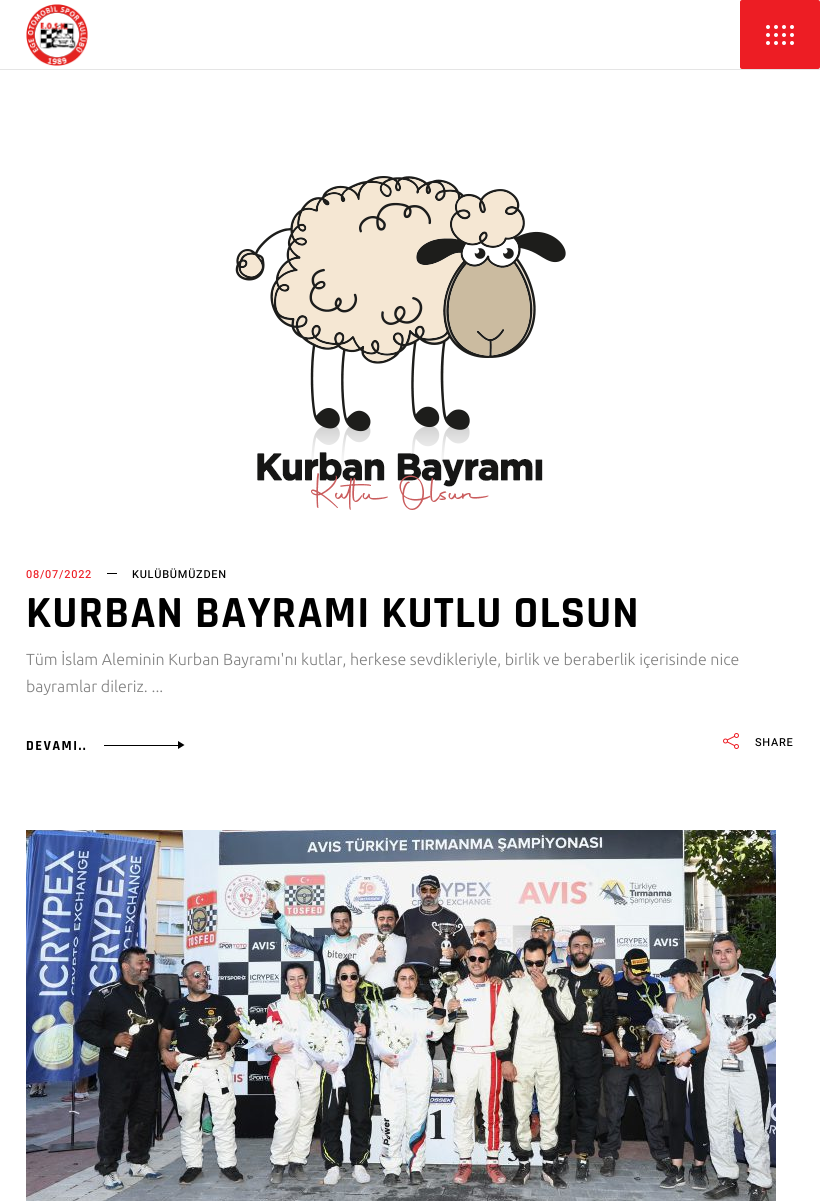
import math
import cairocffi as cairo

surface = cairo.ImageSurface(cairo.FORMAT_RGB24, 820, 1201)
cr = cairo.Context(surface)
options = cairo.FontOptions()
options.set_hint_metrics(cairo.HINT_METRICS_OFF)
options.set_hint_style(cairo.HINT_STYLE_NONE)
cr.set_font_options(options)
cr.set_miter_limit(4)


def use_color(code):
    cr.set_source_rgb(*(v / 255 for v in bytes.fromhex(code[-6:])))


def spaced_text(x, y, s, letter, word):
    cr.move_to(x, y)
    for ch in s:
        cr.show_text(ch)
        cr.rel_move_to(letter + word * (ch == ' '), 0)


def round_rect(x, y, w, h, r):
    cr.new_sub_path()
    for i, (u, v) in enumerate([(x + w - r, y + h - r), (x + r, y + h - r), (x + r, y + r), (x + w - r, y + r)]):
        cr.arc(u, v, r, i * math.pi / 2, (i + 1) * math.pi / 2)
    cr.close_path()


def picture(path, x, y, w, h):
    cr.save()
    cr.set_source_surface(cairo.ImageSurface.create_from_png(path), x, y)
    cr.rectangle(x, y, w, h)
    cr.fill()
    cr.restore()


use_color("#ffffff")
cr.paint()
use_color("#e5e5e5")
cr.rectangle(0, 69, 820, 1)
cr.fill()
picture("img1.png", 26, 4, 62, 62)
use_color("#ed1d24")
round_rect(740, 0, 80, 69, 2)
cr.fill()
use_color("#ffffff")
cr.arc(768, 27, 2, 0, 2 * math.pi)
cr.fill()
cr.arc(776, 27, 2, 0, 2 * math.pi)
cr.fill()
cr.arc(784, 27, 2, 0, 2 * math.pi)
cr.fill()
cr.arc(792, 27, 2, 0, 2 * math.pi)
cr.fill()
cr.arc(768, 35, 2, 0, 2 * math.pi)
cr.fill()
cr.arc(776, 35, 2, 0, 2 * math.pi)
cr.fill()
cr.arc(784, 35, 2, 0, 2 * math.pi)
cr.fill()
cr.arc(792, 35, 2, 0, 2 * math.pi)
cr.fill()
cr.arc(768, 43, 2, 0, 2 * math.pi)
cr.fill()
cr.arc(776, 43, 2, 0, 2 * math.pi)
cr.fill()
cr.arc(784, 43, 2, 0, 2 * math.pi)
cr.fill()
cr.arc(792, 43, 2, 0, 2 * math.pi)
cr.fill()
picture("img2.png", 235, 176, 331, 334)
cr.select_font_face("Heebo Medium")
cr.set_font_size(11)
use_color("#ed1d24")
spaced_text(26, 578, "08/07/2022", 0.75, 0)
use_color("#000000")
cr.rectangle(107, 573, 10, 1)
cr.fill()
spaced_text(132, 578, "KULÜBÜMÜZDEN", 0.75, 0)
cr.select_font_face("Rajdhani", cairo.FONT_SLANT_NORMAL, cairo.FONT_WEIGHT_BOLD)
cr.set_font_size(45)
spaced_text(26, 627, "KURBAN BAYRAMI KUTLU OLSUN", 1.1, 0)
cr.select_font_face("Ubuntu Light")
cr.set_font_size(16)
use_color("#808080")
cr.move_to(26, 665)
cr.show_text("Tüm İslam Aleminin Kurban Bayramı'nı kutlar, herkese sevdikleriyle, birlik ve beraberlik içerisinde nice")
cr.move_to(26, 692)
cr.show_text("bayramlar dileriz. ...")
cr.select_font_face("Rajdhani", cairo.FONT_SLANT_NORMAL, cairo.FONT_WEIGHT_BOLD)
cr.set_font_size(14)
use_color("#000000")
spaced_text(26, 750, "DEVAMI..", 1.5, 0)
cr.rectangle(104, 745, 74, 1)
cr.fill()
cr.new_path()
cr.move_to(178, 741)
cr.line_to(184.5, 745)
cr.line_to(178, 749)
cr.close_path()
cr.fill()
picture("img3.png", 723, 733, 16, 16)
cr.select_font_face("Heebo Medium")
cr.set_font_size(11)
spaced_text(755, 746, "SHARE", 0.75, 0)
picture("img4.png", 26, 830, 750, 371)
surface.write_to_png("result.png")
